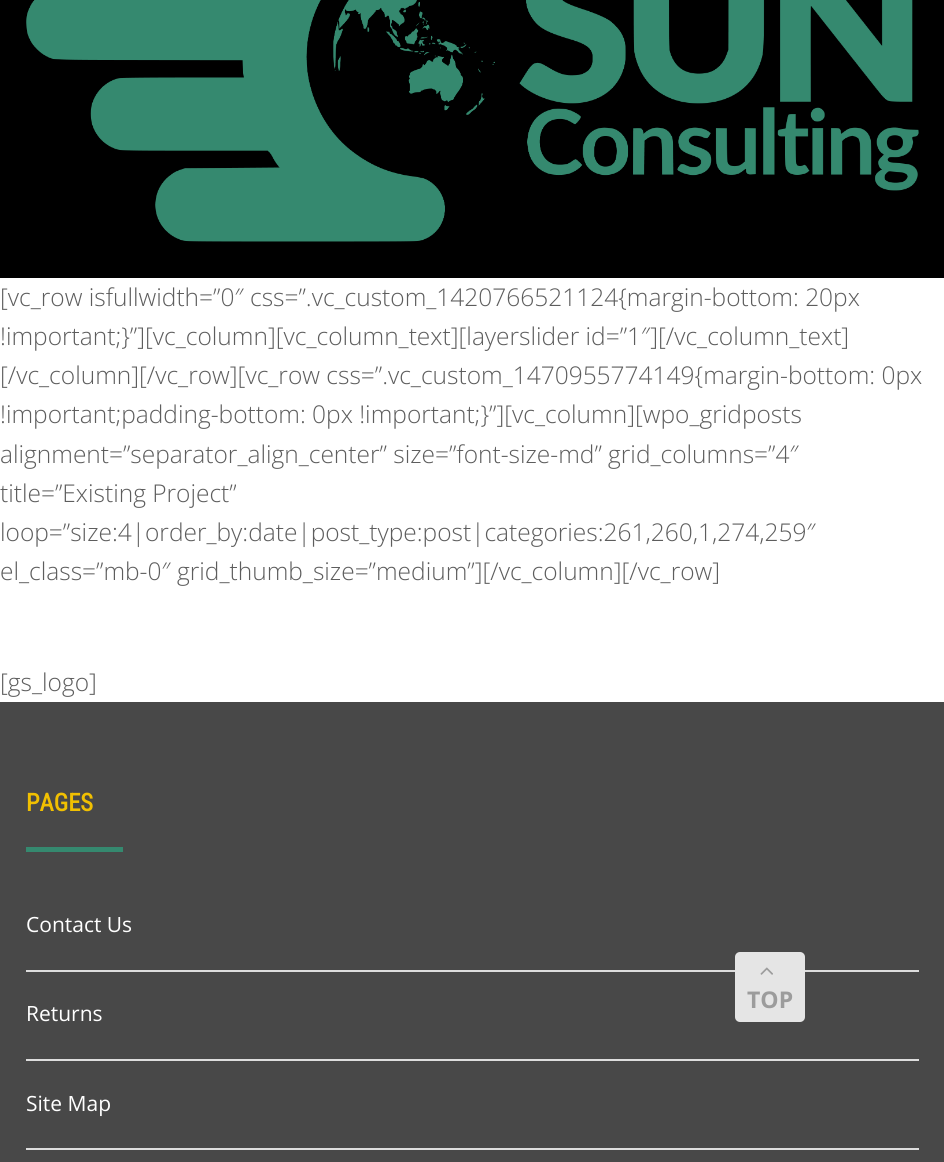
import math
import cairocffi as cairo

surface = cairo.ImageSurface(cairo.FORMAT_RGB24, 944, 1162)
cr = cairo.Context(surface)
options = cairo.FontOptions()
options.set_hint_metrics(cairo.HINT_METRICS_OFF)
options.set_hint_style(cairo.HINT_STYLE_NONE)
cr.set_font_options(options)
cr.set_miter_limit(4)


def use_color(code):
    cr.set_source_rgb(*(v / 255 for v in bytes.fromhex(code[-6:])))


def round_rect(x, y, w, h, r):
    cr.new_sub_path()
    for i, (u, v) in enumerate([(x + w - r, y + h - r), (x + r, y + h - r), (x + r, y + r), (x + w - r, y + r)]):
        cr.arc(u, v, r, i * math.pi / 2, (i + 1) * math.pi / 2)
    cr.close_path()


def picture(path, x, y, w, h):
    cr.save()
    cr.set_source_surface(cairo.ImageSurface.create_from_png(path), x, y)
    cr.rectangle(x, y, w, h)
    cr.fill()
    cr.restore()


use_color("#ffffff")
cr.paint()
use_color("#000000")
cr.rectangle(0, 0, 944, 278)
cr.fill()
picture("img1.png", 26, 0, 893, 242)
cr.select_font_face("Open Sans Light")
cr.set_font_size(24.5)
use_color("#5d5d5d")
cr.move_to(0, 306)
cr.show_text("[vc_row isfullwidth=”0″ css=”.vc_custom_1420766521124{margin-bottom: 20px")
cr.move_to(0, 345)
cr.show_text("!important;}”][vc_column][vc_column_text][layerslider id=”1″][/vc_column_text]")
cr.move_to(0, 384)
cr.show_text("[/vc_column][/vc_row][vc_row css=”.vc_custom_1470955774149{margin-bottom: 0px")
cr.move_to(0, 423)
cr.show_text("!important;padding-bottom: 0px !important;}”][vc_column][wpo_gridposts")
cr.move_to(0, 463)
cr.show_text("alignment=”separator_align_center” size=”font-size-md” grid_columns=”4″")
cr.move_to(0, 502)
cr.show_text("title=”Existing Project”")
cr.move_to(0, 541)
cr.show_text("loop=”size:4|order_by:date|post_type:post|categories:261,260,1,274,259″")
cr.move_to(0, 580)
cr.show_text("el_class=”mb-0″ grid_thumb_size=”medium”][/vc_column][/vc_row]")
cr.move_to(0, 691)
cr.show_text("[gs_logo]")
use_color("#484848")
cr.rectangle(0, 702, 944, 460)
cr.fill()
cr.select_font_face("Roboto Condensed", cairo.FONT_SLANT_NORMAL, cairo.FONT_WEIGHT_BOLD)
use_color("#f1c001")
cr.move_to(26, 811)
cr.show_text("PAGES")
use_color("#35896f")
cr.rectangle(26, 847, 97, 5)
cr.fill()
use_color("#dddddd")
cr.rectangle(26, 970, 893, 2)
cr.fill()
cr.select_font_face("Open Sans")
cr.set_font_size(21)
use_color("#ffffff")
cr.move_to(26, 932)
cr.show_text("Contact Us")
use_color("#dddddd")
cr.rectangle(26, 1059, 893, 2)
cr.fill()
use_color("#ffffff")
cr.move_to(26, 1021)
cr.show_text("Returns")
use_color("#dddddd")
cr.rectangle(26, 1148, 893, 2)
cr.fill()
use_color("#ffffff")
cr.move_to(26, 1111)
cr.show_text("Site Map")
use_color("#e5e5e5")
round_rect(735, 952, 70, 70, 5)
cr.fill()
picture("img2.png", 760, 967, 13, 8)
cr.select_font_face("Open Sans", cairo.FONT_SLANT_NORMAL, cairo.FONT_WEIGHT_BOLD)
cr.set_font_size(23)
use_color("#9c9c9c")
cr.move_to(747, 1008)
cr.show_text("TOP")
surface.write_to_png("result.png")
